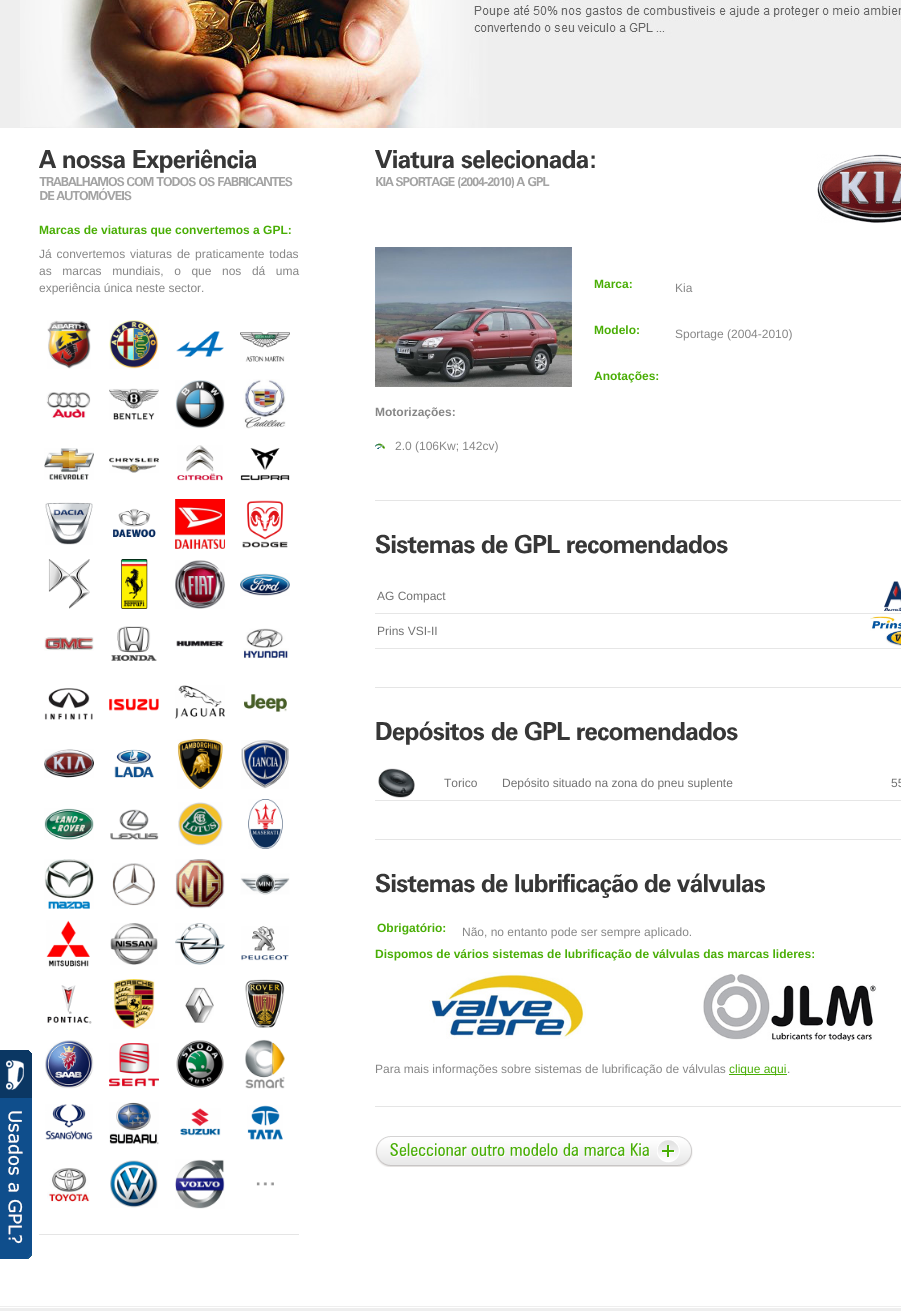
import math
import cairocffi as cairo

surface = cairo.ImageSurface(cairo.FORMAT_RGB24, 901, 1311)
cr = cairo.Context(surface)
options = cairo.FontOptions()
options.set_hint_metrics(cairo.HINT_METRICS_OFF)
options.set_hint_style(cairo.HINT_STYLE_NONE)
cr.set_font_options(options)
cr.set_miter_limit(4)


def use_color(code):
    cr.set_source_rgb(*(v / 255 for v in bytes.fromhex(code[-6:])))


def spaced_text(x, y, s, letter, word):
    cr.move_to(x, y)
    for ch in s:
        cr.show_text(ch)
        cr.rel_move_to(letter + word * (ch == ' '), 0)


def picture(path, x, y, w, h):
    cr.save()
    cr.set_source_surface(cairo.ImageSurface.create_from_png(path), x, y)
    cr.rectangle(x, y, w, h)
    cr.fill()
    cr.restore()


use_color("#ffffff")
cr.paint()
use_color("#eeeeee")
cr.rectangle(0, 0, 20, 128)
cr.fill()
picture("img1.png", 0, 1306, 901, 5)
picture("img2.png", 20, 0, 881, 128)
picture("img3.png", 39, 150, 18, 18)
picture("img4.png", 63, 155, 62, 14)
picture("img5.png", 133, 149, 124, 24)
picture("img6.png", 39, 177, 86, 10)
picture("img7.png", 126, 177, 28, 10)
picture("img8.png", 156, 177, 40, 10)
picture("img9.png", 199, 177, 16, 10)
picture("img10.png", 218, 177, 75, 10)
picture("img11.png", 40, 191, 15, 9)
picture("img12.png", 56, 188, 76, 13)
use_color("#e5e5e5")
cr.rectangle(39, 1234, 260, 1)
cr.fill()
cr.select_font_face("Liberation Sans", cairo.FONT_SLANT_NORMAL, cairo.FONT_WEIGHT_BOLD)
cr.set_font_size(12)
use_color("#49ae05")
cr.move_to(39, 234)
cr.show_text("Marcas de viaturas que convertemos a GPL:")
cr.select_font_face("Liberation Sans")
use_color("#868686")
spaced_text(39, 258, "Já convertemos viaturas de praticamente todas", 0, 1.5)
spaced_text(39, 275, "as marcas mundiais, o que nos dá uma", 0, 7.25)
cr.move_to(39, 292)
cr.show_text("experiência única neste sector.")
picture("img13.png", 47, 320, 44, 49)
picture("img14.png", 109, 320, 50, 49)
picture("img15.png", 176, 331, 48, 26)
picture("img16.png", 240, 332, 50, 30)
picture("img17.png", 46, 392, 45, 26)
picture("img18.png", 109, 388, 50, 32)
picture("img19.png", 175, 380, 50, 49)
picture("img20.png", 243, 379, 43, 50)
picture("img21.png", 44, 448, 50, 32)
picture("img22.png", 109, 457, 50, 16)
picture("img23.png", 177, 445, 46, 36)
picture("img24.png", 240, 448, 50, 33)
picture("img25.png", 45, 502, 48, 43)
picture("img26.png", 113, 508, 43, 30)
picture("img27.png", 175, 499, 50, 50)
picture("img28.png", 242, 500, 46, 48)
picture("img29.png", 48, 559, 42, 50)
picture("img30.png", 121, 559, 27, 50)
picture("img31.png", 175, 560, 50, 49)
picture("img32.png", 240, 573, 50, 23)
picture("img33.png", 44, 637, 50, 14)
picture("img34.png", 111, 626, 46, 35)
picture("img35.png", 176, 640, 48, 7)
picture("img36.png", 243, 628, 46, 31)
picture("img37.png", 44, 688, 49, 32)
picture("img38.png", 109, 698, 50, 13)
picture("img39.png", 175, 685, 50, 34)
picture("img40.png", 243, 694, 44, 18)
picture("img41.png", 44, 749, 50, 29)
picture("img42.png", 114, 749, 40, 29)
picture("img43.png", 177, 739, 46, 50)
picture("img44.png", 241, 740, 48, 49)
picture("img45.png", 44, 808, 50, 32)
picture("img46.png", 110, 809, 49, 31)
picture("img47.png", 178, 802, 45, 44)
picture("img48.png", 248, 799, 35, 50)
picture("img49.png", 44, 859, 50, 50)
picture("img50.png", 112, 863, 43, 43)
picture("img51.png", 175, 859, 50, 50)
picture("img52.png", 240, 873, 50, 22)
picture("img53.png", 46, 920, 44, 47)
picture("img54.png", 110, 923, 48, 42)
picture("img55.png", 175, 923, 50, 42)
picture("img56.png", 241, 926, 48, 35)
picture("img57.png", 47, 985, 45, 39)
picture("img58.png", 113, 979, 42, 50)
picture("img59.png", 185, 987, 29, 36)
picture("img60.png", 245, 979, 40, 49)
picture("img61.png", 45, 1040, 49, 49)
picture("img62.png", 109, 1043, 50, 44)
picture("img63.png", 176, 1040, 48, 48)
picture("img64.png", 245, 1039, 40, 50)
picture("img65.png", 45, 1104, 48, 36)
picture("img66.png", 109, 1102, 50, 43)
picture("img67.png", 180, 1108, 41, 28)
picture("img68.png", 247, 1105, 36, 35)
picture("img69.png", 47, 1168, 43, 34)
picture("img70.png", 110, 1160, 48, 48)
picture("img71.png", 175, 1159, 50, 50)
picture("img72.png", 256, 1182, 18, 4)
picture("img73.png", 375, 150, 79, 19)
picture("img74.png", 461, 150, 134, 19)
picture("img75.png", 376, 177, 18, 9)
picture("img76.png", 396, 177, 59, 10)
picture("img77.png", 458, 177, 57, 11)
picture("img78.png", 516, 177, 9, 9)
picture("img79.png", 528, 177, 22, 10)
picture("img80.png", 817, 154, 84, 69)
use_color("#e5e5e5")
cr.rectangle(375, 500, 526, 1)
cr.fill()
picture("img81.png", 375, 247, 197, 140)
cr.select_font_face("Liberation Sans", cairo.FONT_SLANT_NORMAL, cairo.FONT_WEIGHT_BOLD)
use_color("#49ae05")
cr.move_to(594, 288)
cr.show_text("Marca:")
cr.select_font_face("Liberation Sans")
use_color("#868686")
cr.move_to(675, 292)
cr.show_text("Kia")
cr.select_font_face("Liberation Sans", cairo.FONT_SLANT_NORMAL, cairo.FONT_WEIGHT_BOLD)
use_color("#49ae05")
cr.move_to(594, 334)
cr.show_text("Modelo:")
cr.select_font_face("Liberation Sans")
use_color("#868686")
cr.move_to(675, 338)
cr.show_text("Sportage (2004-2010)")
cr.select_font_face("Liberation Sans", cairo.FONT_SLANT_NORMAL, cairo.FONT_WEIGHT_BOLD)
use_color("#49ae05")
cr.move_to(594, 380)
cr.show_text("Anotações:")
use_color("#868686")
cr.move_to(375, 416)
cr.show_text("Motorizações:")
picture("img82.png", 375, 443, 10, 6)
cr.select_font_face("Liberation Sans")
cr.move_to(395, 450)
cr.show_text("2.0 (106Kw; 142cv)")
picture("img83.png", 375, 534, 100, 20)
picture("img84.png", 481, 535, 27, 19)
picture("img85.png", 514, 534, 46, 20)
picture("img86.png", 567, 535, 161, 19)
use_color("#e5e5e5")
cr.rectangle(375, 687, 526, 1)
cr.fill()
use_color("#e6e6e6")
cr.rectangle(375, 613, 526, 1)
cr.fill()
picture("img87.png", 884, 581, 17, 30)
use_color("#717171")
cr.move_to(377, 600)
cr.show_text("AG Compact")
use_color("#e6e6e6")
cr.rectangle(375, 648, 526, 1)
cr.fill()
picture("img88.png", 870, 616, 31, 30)
use_color("#717171")
cr.move_to(377, 635)
cr.show_text("Prins VSI-II")
picture("img89.png", 376, 721, 109, 24)
picture("img84.png", 491, 722, 27, 19)
picture("img85.png", 524, 721, 46, 20)
picture("img86.png", 577, 722, 161, 19)
use_color("#e5e5e5")
cr.rectangle(375, 839, 526, 1)
cr.fill()
picture("img90.png", 378, 768, 37, 30)
use_color("#717171")
cr.move_to(444, 787)
cr.show_text("Torico")
cr.move_to(502, 787)
cr.show_text("Depósito situado na zona do pneu suplente")
use_color("#e6e6e6")
cr.rectangle(375, 800, 526, 1)
cr.fill()
use_color("#717171")
cr.move_to(891, 787)
cr.show_text("55")
picture("img83.png", 375, 873, 100, 20)
picture("img84.png", 481, 874, 27, 19)
picture("img91.png", 515, 873, 123, 25)
picture("img84.png", 644, 874, 27, 19)
picture("img92.png", 677, 873, 88, 20)
use_color("#e5e5e5")
cr.rectangle(375, 1106, 526, 1)
cr.fill()
cr.select_font_face("Liberation Sans", cairo.FONT_SLANT_NORMAL, cairo.FONT_WEIGHT_BOLD)
use_color("#49ae05")
cr.move_to(377, 932)
cr.show_text("Obrigatório:")
cr.select_font_face("Liberation Sans")
use_color("#868686")
cr.move_to(462, 936)
cr.show_text("Não, no entanto pode ser sempre aplicado.")
cr.select_font_face("Liberation Sans", cairo.FONT_SLANT_NORMAL, cairo.FONT_WEIGHT_BOLD)
use_color("#49ae05")
cr.move_to(375, 958)
cr.show_text("Dispomos de vários sistemas de lubrificação de válvulas das marcas lideres:")
picture("img93.png", 429, 972, 157, 67)
picture("img94.png", 703, 974, 174, 67)
cr.select_font_face("Liberation Sans")
use_color("#868686")
cr.move_to(375, 1073)
cr.show_text("Para mais informações sobre sistemas de lubrificação de válvulas")
use_color("#49ae05")
cr.rectangle(729, 1074, 58, 1)
cr.fill()
cr.move_to(729, 1073)
cr.show_text("clique aqui")
use_color("#868686")
cr.move_to(787, 1073)
cr.show_text(".")
picture("img95.png", 390, 1136, 267, 31)
picture("img96.png", 375, 1136, 15, 31)
picture("img97.png", 657, 1136, 36, 31)
picture("img98.png", 390, 1143, 78, 14)
picture("img99.png", 471, 1144, 34, 13)
picture("img100.png", 510, 1143, 49, 14)
picture("img101.png", 563, 1143, 16, 14)
picture("img102.png", 584, 1146, 42, 11)
picture("img103.png", 630, 1143, 20, 14)
picture("img104.png", 0, 1050, 32, 209)
surface.write_to_png("result.png")
